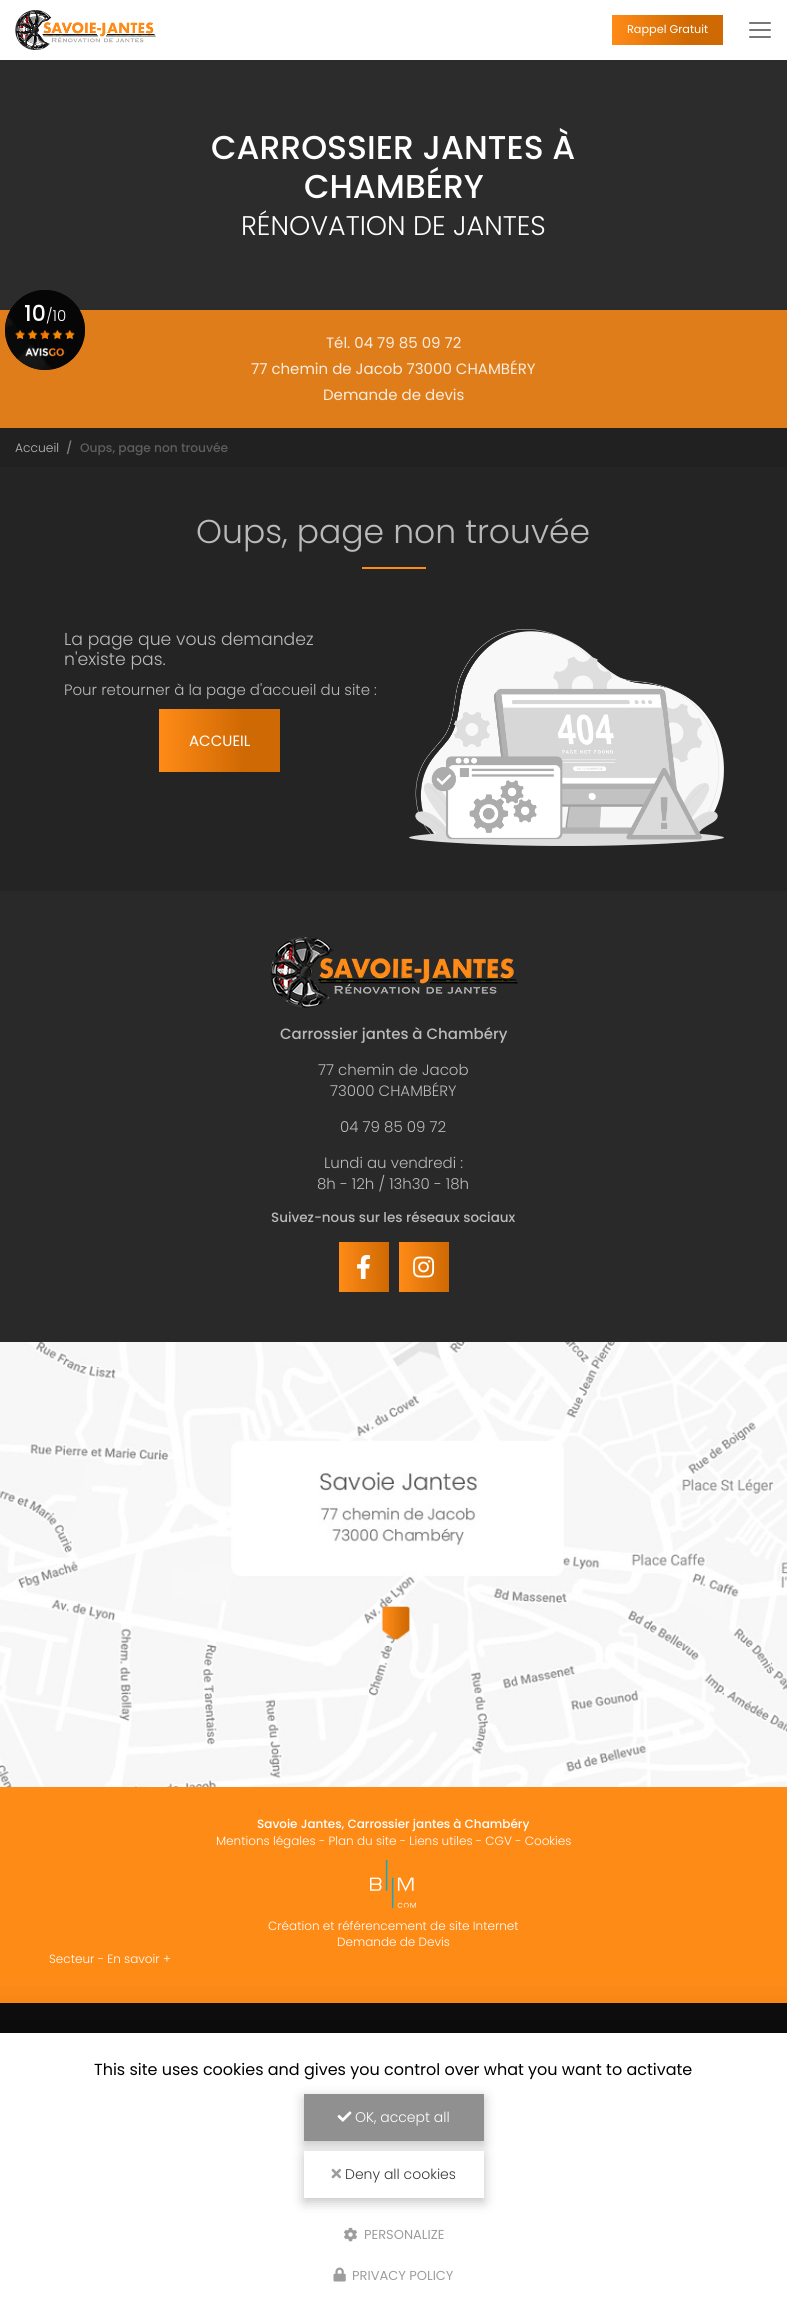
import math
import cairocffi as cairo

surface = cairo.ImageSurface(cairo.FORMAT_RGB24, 787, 2324)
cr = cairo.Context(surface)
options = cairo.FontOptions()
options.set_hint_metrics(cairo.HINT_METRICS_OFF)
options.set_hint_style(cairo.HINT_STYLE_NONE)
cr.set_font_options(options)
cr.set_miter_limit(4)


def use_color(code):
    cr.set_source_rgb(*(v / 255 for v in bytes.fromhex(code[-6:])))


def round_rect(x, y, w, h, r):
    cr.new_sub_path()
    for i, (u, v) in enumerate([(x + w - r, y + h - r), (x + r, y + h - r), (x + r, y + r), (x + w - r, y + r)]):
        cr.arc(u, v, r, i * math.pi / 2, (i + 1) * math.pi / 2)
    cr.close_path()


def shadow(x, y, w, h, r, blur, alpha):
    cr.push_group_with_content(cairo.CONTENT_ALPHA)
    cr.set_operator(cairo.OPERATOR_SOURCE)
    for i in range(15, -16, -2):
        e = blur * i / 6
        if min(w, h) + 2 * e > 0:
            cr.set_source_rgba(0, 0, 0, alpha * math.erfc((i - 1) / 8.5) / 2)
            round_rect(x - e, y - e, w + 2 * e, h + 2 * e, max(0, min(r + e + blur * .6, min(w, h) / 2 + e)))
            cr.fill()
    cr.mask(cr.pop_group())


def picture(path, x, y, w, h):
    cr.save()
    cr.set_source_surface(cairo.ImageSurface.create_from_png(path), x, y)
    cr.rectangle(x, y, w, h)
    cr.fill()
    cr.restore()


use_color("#242424")
cr.paint()
use_color("#ffffff")
cr.rectangle(0, 0, 787, 60)
cr.fill()
picture("img1.png", 15, 10, 141, 40)
gradient = cairo.LinearGradient(612, 30, 723, 30)
gradient.add_color_stop_rgba(0, 1, 0.545, 0.09, 1)
gradient.add_color_stop_rgba(0.7, 0.812, 0.412, 0.012, 1)
cr.set_source(gradient)
cr.rectangle(612, 15, 111, 30)
cr.fill()
cr.select_font_face("Poppins")
cr.set_font_size(11.25)
use_color("#ffffff")
cr.move_to(627, 33)
cr.show_text("Rappel Gratuit")
use_color("#777777")
round_rect(749, 22, 22, 2, 1)
cr.fill()
round_rect(749, 29, 22, 2, 1)
cr.fill()
round_rect(749, 36, 22, 2, 1)
cr.fill()
use_color("#2c2c2c")
cr.rectangle(0, 60, 787, 250)
cr.fill()
cr.select_font_face("Poppins Medium")
cr.set_font_size(33)
use_color("#ffffff")
cr.move_to(211, 159)
cr.show_text("CARROSSIER JANTES À")
cr.move_to(304, 198)
cr.show_text("CHAMBÉRY")
cr.select_font_face("Poppins Light")
cr.set_font_size(27)
cr.move_to(241, 235)
cr.show_text("RÉNOVATION DE JANTES")
use_color("#df7d1a")
cr.rectangle(0, 310, 787, 118)
cr.fill()
use_color("#060606")
cr.arc(45, 330, 40, 0, 2 * math.pi)
cr.fill()
picture("img2.png", 5, 290, 80, 80)
cr.select_font_face("Poppins Medium")
cr.set_font_size(22)
use_color("#ffffff")
cr.move_to(24, 321)
cr.show_text("10")
cr.select_font_face("Poppins Light")
cr.set_font_size(15)
cr.move_to(46, 321)
cr.show_text("/10")
picture("img3.png", 15, 330, 60, 9)
picture("img4.png", 25, 347, 40, 10)
cr.select_font_face("Poppins")
use_color("#faecdd")
cr.move_to(326, 348)
cr.show_text("Tél. 04 79 85 09 72")
cr.move_to(251, 374)
cr.show_text("77 chemin de Jacob 73000 CHAMBÉRY")
cr.move_to(323, 400)
cr.show_text("Demande de devis")
use_color("#212121")
cr.rectangle(0, 428, 787, 39)
cr.fill()
cr.select_font_face("Poppins Light")
cr.set_font_size(12.25)
use_color("#bababa")
cr.move_to(15, 452)
cr.show_text("Accueil")
cr.select_font_face("Poppins Medium")
use_color("#818181")
cr.move_to(66, 452)
cr.show_text("/")
use_color("#5e5e5e")
cr.move_to(80, 452)
cr.show_text("Oups, page non trouvée")
cr.select_font_face("Poppins Light")
cr.set_font_size(33)
use_color("#bababa")
cr.move_to(196, 543)
cr.show_text("Oups, page non trouvée")
use_color("#ff8b17")
cr.rectangle(362, 567, 64, 2)
cr.fill()
cr.set_font_size(17.25)
use_color("#bababa")
cr.move_to(64, 645)
cr.show_text("La page que vous demandez")
cr.move_to(64, 665)
cr.show_text("n'existe pas.")
cr.set_font_size(15)
cr.move_to(64, 695)
cr.show_text("Pour retourner à la page d'accueil du site :")
gradient = cairo.LinearGradient(159, 740, 280, 740)
gradient.add_color_stop_rgba(0, 1, 0.545, 0.09, 1)
gradient.add_color_stop_rgba(0.7, 0.812, 0.412, 0.012, 1)
cr.set_source(gradient)
cr.rectangle(159, 709, 121, 63)
cr.fill()
cr.select_font_face("Poppins")
use_color("#ffffff")
cr.move_to(189, 746)
cr.show_text("ACCUEIL")
picture("img5.png", 409, 629, 315, 217)
use_color("#292929")
cr.rectangle(0, 891, 787, 451)
cr.fill()
picture("img6.png", 270, 936, 248, 72)
cr.select_font_face("Poppins Medium")
use_color("#bababa")
cr.move_to(280, 1039)
cr.show_text("Carrossier jantes à Chambéry")
cr.select_font_face("Poppins Light")
cr.move_to(318, 1075)
cr.show_text("77 chemin de Jacob")
cr.move_to(330, 1096)
cr.show_text("73000 CHAMBÉRY")
cr.move_to(340, 1132)
cr.show_text("04 79 85 09 72")
cr.move_to(324, 1168)
cr.show_text("Lundi au vendredi :")
cr.move_to(317, 1189)
cr.show_text("8h - 12h / 13h30 - 18h")
cr.select_font_face("Poppins Medium")
cr.set_font_size(13.5)
cr.move_to(271, 1222)
cr.show_text("Suivez-nous sur les réseaux sociaux")
gradient = cairo.LinearGradient(339, 1267, 389, 1267)
gradient.add_color_stop_rgba(0, 1, 0.545, 0.09, 1)
gradient.add_color_stop_rgba(1, 0.812, 0.412, 0.012, 1)
cr.set_source(gradient)
cr.rectangle(339, 1242, 50, 50)
cr.fill()
picture("img7.png", 357, 1255, 13, 24)
gradient = cairo.LinearGradient(399, 1267, 449, 1267)
gradient.add_color_stop_rgba(0, 1, 0.545, 0.09, 1)
gradient.add_color_stop_rgba(1, 0.812, 0.412, 0.012, 1)
cr.set_source(gradient)
cr.rectangle(399, 1242, 50, 50)
cr.fill()
picture("img8.png", 413, 1256, 22, 22)
picture("img9.png", 0, 1342, 787, 445)
use_color("#ff8b17")
cr.rectangle(0, 1787, 787, 216)
cr.fill()
cr.set_font_size(12)
use_color("#ffffff")
cr.move_to(257, 1828)
cr.show_text("Savoie Jantes, Carrossier jantes à Chambéry")
cr.select_font_face("Poppins Light")
cr.move_to(216, 1845)
cr.show_text("Mentions légales - Plan du site - Liens utiles - CGV - Cookies")
picture("img10.png", 370, 1860, 46, 48)
cr.move_to(268, 1930)
cr.show_text("Création et référencement de site Internet")
cr.move_to(337, 1946)
cr.show_text("Demande de Devis")
cr.move_to(49, 1963)
cr.show_text("Secteur - En savoir +")
picture("img11.png", 0, 2003, 787, 30)
use_color("#000000")
shadow(-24, 2033, 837, 291, 0, 25, 0.34)
use_color("#ffffff")
cr.rectangle(0, 2033, 787, 291)
cr.fill()
use_color("#0c0c0c")
shadow(304, 2098, 180, 47, 0, 6, 0.25)
cr.select_font_face("Poppins")
cr.set_font_size(16)
use_color("#000000")
cr.move_to(94, 2075)
cr.show_text("This site uses cookies and gives you control over what you want to activate")
use_color("#909090")
cr.rectangle(304, 2094, 180, 47)
cr.fill()
picture("img12.png", 337, 2111, 15, 11)
cr.select_font_face("Poppins Light")
cr.set_font_size(14)
use_color("#ffffff")
cr.move_to(355, 2122)
cr.show_text("OK, accept all")
use_color("#0c0c0c")
shadow(304, 2155, 180, 47, 0, 6, 0.25)
use_color("#ffffff")
cr.rectangle(304, 2151, 180, 47)
cr.fill()
picture("img13.png", 331, 2168, 11, 11)
use_color("#373737")
cr.move_to(345, 2179)
cr.show_text("Deny all cookies")
picture("img14.png", 344, 2227, 13, 15)
cr.select_font_face("Poppins")
cr.set_font_size(13)
use_color("#9d9d9d")
cr.move_to(364, 2239)
cr.show_text("PERSONALIZE")
picture("img15.png", 333, 2267, 13, 15)
cr.move_to(352, 2280)
cr.show_text("PRIVACY POLICY")
surface.write_to_png("result.png")
